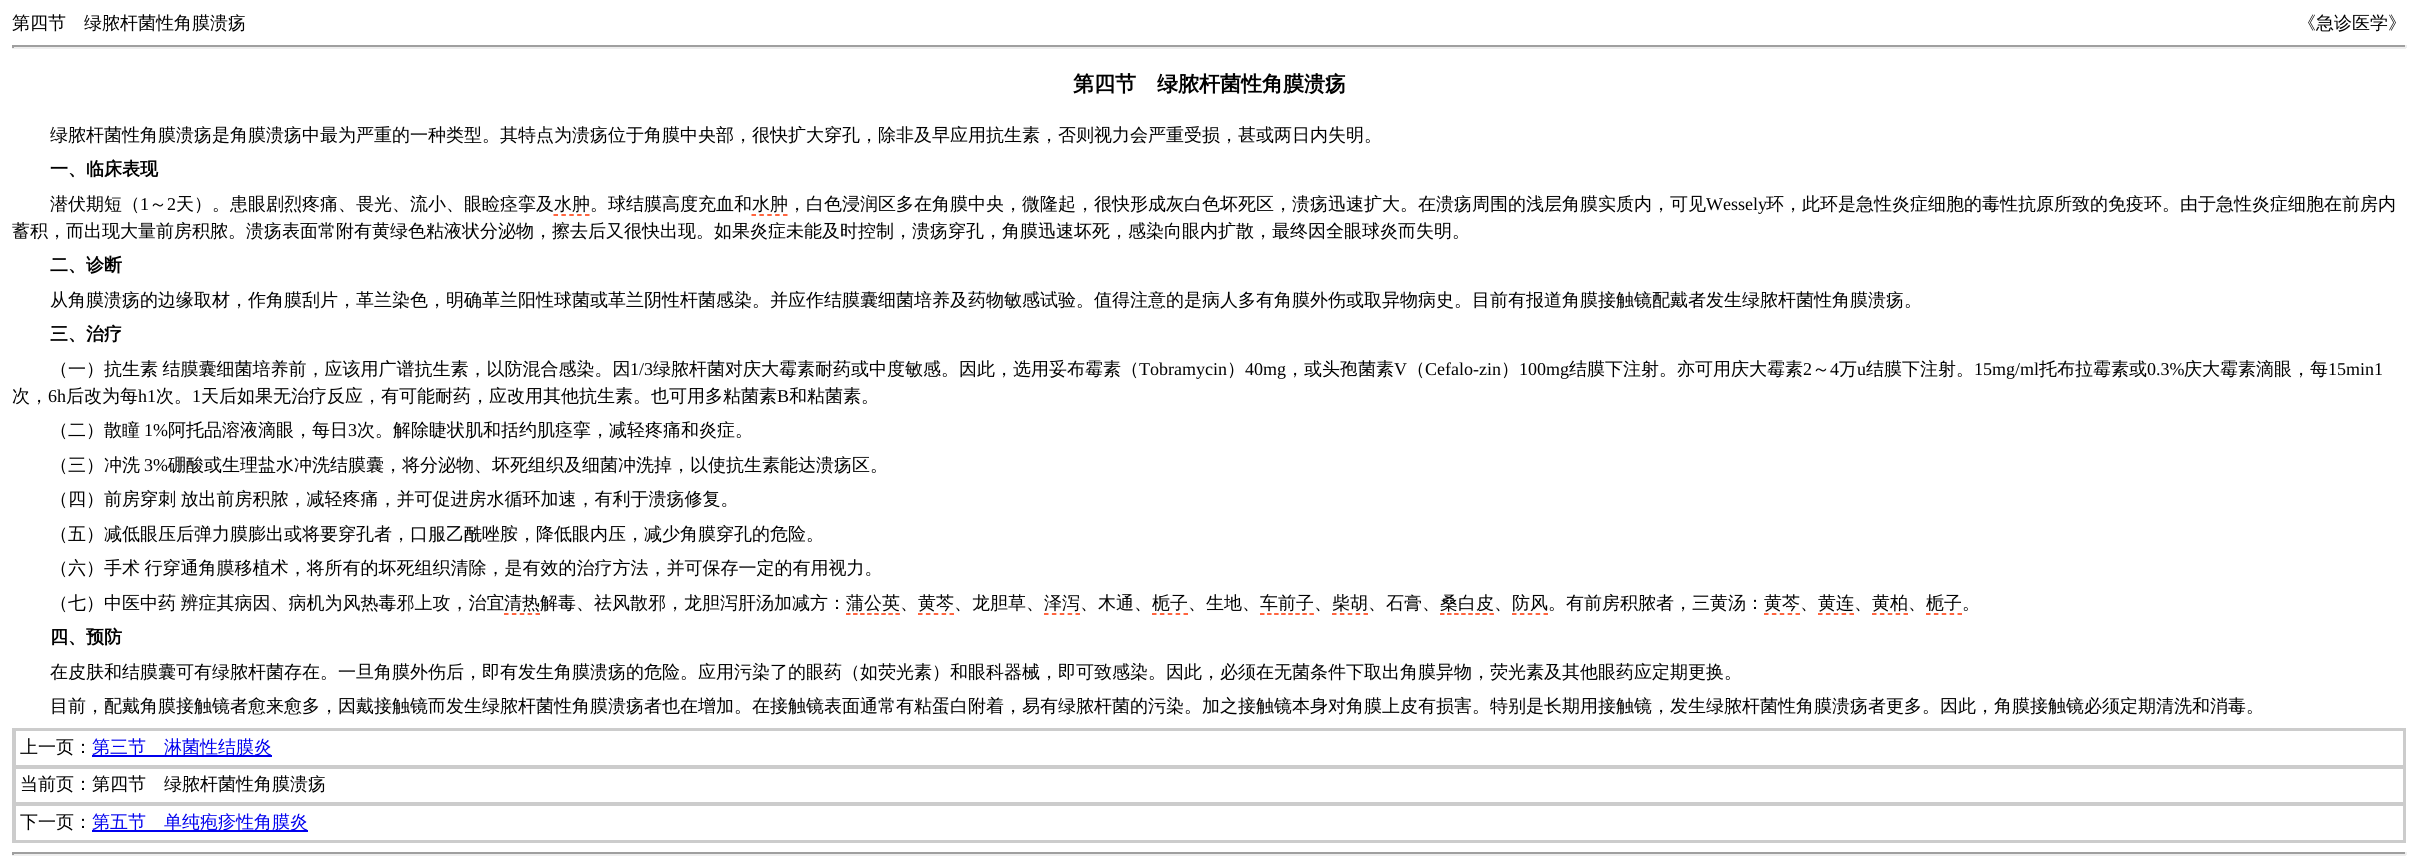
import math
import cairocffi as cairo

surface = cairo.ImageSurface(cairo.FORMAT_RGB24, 2418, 860)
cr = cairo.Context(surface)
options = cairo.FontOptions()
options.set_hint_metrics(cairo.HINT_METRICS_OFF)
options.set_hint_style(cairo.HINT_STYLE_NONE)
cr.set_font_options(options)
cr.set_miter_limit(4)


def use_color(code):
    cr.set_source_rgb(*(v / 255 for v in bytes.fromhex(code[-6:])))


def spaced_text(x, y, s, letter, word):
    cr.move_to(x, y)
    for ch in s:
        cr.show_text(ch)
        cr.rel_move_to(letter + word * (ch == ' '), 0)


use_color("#ffffff")
cr.paint()
cr.select_font_face("WenQuanYi Zen Hei Medium")
cr.set_font_size(18)
use_color("#000000")
cr.move_to(12, 29)
cr.show_text("第四节　绿脓杆菌性角膜溃疡")
cr.move_to(2298, 29)
cr.show_text("《急诊医学》")
use_color("#9f9f9f")
cr.rectangle(12, 45, 2394, 2)
cr.fill()
use_color("#eeeeee")
cr.rectangle(2405, 45, 2, 3)
cr.fill()
cr.rectangle(12, 47, 2394, 2)
cr.fill()
use_color("#9f9f9f")
cr.rectangle(12, 45, 2, 3)
cr.fill()
cr.select_font_face("WenQuanYi Zen Hei", cairo.FONT_SLANT_NORMAL, cairo.FONT_WEIGHT_BOLD)
cr.set_font_size(21)
use_color("#000000")
cr.move_to(1073, 91)
cr.show_text("第四节　绿脓杆菌性角膜溃疡")
cr.select_font_face("WenQuanYi Zen Hei Medium")
cr.set_font_size(18)
cr.move_to(50, 141)
cr.show_text("绿脓杆菌性角膜溃疡是角膜溃疡中最为严重的一种类型。其特点为溃疡位于角膜中央部，很快扩大穿孔，除非及早应用抗生素，否则视力会严重受损，甚或两日内失明。")
cr.select_font_face("WenQuanYi Zen Hei", cairo.FONT_SLANT_NORMAL, cairo.FONT_WEIGHT_BOLD)
cr.move_to(50, 175)
cr.show_text("一、临床表现")
cr.select_font_face("WenQuanYi Zen Hei Medium")
cr.move_to(50, 210)
cr.show_text("潜伏期短（")
cr.select_font_face("Liberation Serif")
cr.move_to(140, 210)
cr.show_text("1")
cr.select_font_face("WenQuanYi Zen Hei Medium")
cr.move_to(149, 210)
cr.show_text("～")
cr.select_font_face("Liberation Serif")
cr.move_to(167, 210)
cr.show_text("2")
cr.select_font_face("WenQuanYi Zen Hei Medium")
cr.move_to(176, 210)
cr.show_text("天）。患眼剧烈疼痛、畏光、流小、眼睑痉挛及水肿。球结膜高度充血和水肿，白色浸润区多在角膜中央，微隆起，很快形成灰白色坏死区，溃疡迅速扩大。在溃疡周围的浅层角膜实质内，可见")
cr.select_font_face("Liberation Serif")
cr.move_to(1706, 210)
cr.show_text("Wessely")
cr.select_font_face("WenQuanYi Zen Hei Medium")
cr.move_to(1766, 210)
cr.show_text("环，此环是急性炎症细胞的毒性抗原所致的免疫环。由于急性炎症细胞在前房内")
cr.new_path()
cr.move_to(553.5, 215)
cr.line_to(589.5, 215)
use_color("#ff3300")
cr.set_line_width(1.5)
cr.set_dash([4.5, 3.38])
cr.stroke()
cr.new_path()
cr.move_to(751.5, 215)
cr.line_to(787.5, 215)
cr.stroke()
use_color("#000000")
cr.move_to(12, 237)
cr.show_text("蓄积，而出现大量前房积脓。溃疡表面常附有黄绿色粘液状分泌物，擦去后又很快出现。如果炎症未能及时控制，溃疡穿孔，角膜迅速坏死，感染向眼内扩散，最终因全眼球炎而失明。")
cr.select_font_face("WenQuanYi Zen Hei", cairo.FONT_SLANT_NORMAL, cairo.FONT_WEIGHT_BOLD)
cr.move_to(50, 271)
cr.show_text("二、诊断")
cr.select_font_face("WenQuanYi Zen Hei Medium")
cr.move_to(50, 306)
cr.show_text("从角膜溃疡的边缘取材，作角膜刮片，革兰染色，明确革兰阳性球菌或革兰阴性杆菌感染。并应作结膜囊细菌培养及药物敏感试验。值得注意的是病人多有角膜外伤或取异物病史。目前有报道角膜接触镜配戴者发生绿脓杆菌性角膜溃疡。")
cr.select_font_face("WenQuanYi Zen Hei", cairo.FONT_SLANT_NORMAL, cairo.FONT_WEIGHT_BOLD)
cr.move_to(50, 340)
cr.show_text("三、治疗")
cr.select_font_face("WenQuanYi Zen Hei Medium")
spaced_text(50, 375, "（一）抗生素 结膜囊细菌培养前，应该用广谱抗生素，以防混合感染。因", 0, -1)
cr.select_font_face("Liberation Serif")
cr.move_to(630, 375)
cr.show_text("1/3")
cr.select_font_face("WenQuanYi Zen Hei Medium")
cr.move_to(653, 375)
cr.show_text("绿脓杆菌对庆大霉素耐药或中度敏感。因此，选用妥布霉素（")
cr.select_font_face("Liberation Serif")
cr.move_to(1139, 375)
cr.show_text("Tobramycin")
cr.select_font_face("WenQuanYi Zen Hei Medium")
cr.move_to(1227, 375)
cr.show_text("）")
cr.select_font_face("Liberation Serif")
cr.move_to(1245, 375)
cr.show_text("40mg")
cr.select_font_face("WenQuanYi Zen Hei Medium")
cr.move_to(1286, 375)
cr.show_text("，或头孢菌素")
cr.select_font_face("Liberation Serif")
cr.move_to(1394, 375)
cr.show_text("V")
cr.select_font_face("WenQuanYi Zen Hei Medium")
cr.move_to(1407, 375)
cr.show_text("（")
cr.select_font_face("Liberation Serif")
cr.move_to(1425, 375)
cr.show_text("Cefalo-zin")
cr.select_font_face("WenQuanYi Zen Hei Medium")
cr.move_to(1501, 375)
cr.show_text("）")
cr.select_font_face("Liberation Serif")
cr.move_to(1519, 375)
cr.show_text("100mg")
cr.select_font_face("WenQuanYi Zen Hei Medium")
cr.move_to(1569, 375)
cr.show_text("结膜下注射。亦可用庆大霉素")
cr.select_font_face("Liberation Serif")
cr.move_to(1803, 375)
cr.show_text("2")
cr.select_font_face("WenQuanYi Zen Hei Medium")
cr.move_to(1812, 375)
cr.show_text("～")
cr.select_font_face("Liberation Serif")
cr.move_to(1830, 375)
cr.show_text("4")
cr.select_font_face("WenQuanYi Zen Hei Medium")
cr.move_to(1839, 375)
cr.show_text("万")
cr.select_font_face("Liberation Serif")
cr.move_to(1857, 375)
cr.show_text("u")
cr.select_font_face("WenQuanYi Zen Hei Medium")
cr.move_to(1866, 375)
cr.show_text("结膜下注射。")
cr.select_font_face("Liberation Serif")
cr.move_to(1974, 375)
cr.show_text("15mg/ml")
cr.select_font_face("WenQuanYi Zen Hei Medium")
cr.move_to(2039, 375)
cr.show_text("托布拉霉素或")
cr.select_font_face("Liberation Serif")
cr.move_to(2147, 375)
cr.show_text("0.3%")
cr.select_font_face("WenQuanYi Zen Hei Medium")
cr.move_to(2184, 375)
cr.show_text("庆大霉素滴眼，每")
cr.select_font_face("Liberation Serif")
cr.move_to(2328, 375)
cr.show_text("15min1")
cr.select_font_face("WenQuanYi Zen Hei Medium")
cr.move_to(12, 402)
cr.show_text("次，")
cr.select_font_face("Liberation Serif")
cr.move_to(48, 402)
cr.show_text("6h")
cr.select_font_face("WenQuanYi Zen Hei Medium")
cr.move_to(66, 402)
cr.show_text("后改为每")
cr.select_font_face("Liberation Serif")
cr.move_to(138, 402)
cr.show_text("h1")
cr.select_font_face("WenQuanYi Zen Hei Medium")
cr.move_to(156, 402)
cr.show_text("次。")
cr.select_font_face("Liberation Serif")
cr.move_to(192, 402)
cr.show_text("1")
cr.select_font_face("WenQuanYi Zen Hei Medium")
cr.move_to(201, 402)
cr.show_text("天后如果无治疗反应，有可能耐药，应改用其他抗生素。也可用多粘菌素")
cr.select_font_face("Liberation Serif")
cr.move_to(777, 402)
cr.show_text("B")
cr.select_font_face("WenQuanYi Zen Hei Medium")
cr.move_to(789, 402)
cr.show_text("和粘菌素。")
cr.move_to(50, 436)
cr.show_text("（二）散瞳")
cr.select_font_face("Liberation Serif")
cr.move_to(144, 436)
cr.show_text("1%")
cr.select_font_face("WenQuanYi Zen Hei Medium")
cr.move_to(168, 436)
cr.show_text("阿托品溶液滴眼，每日")
cr.select_font_face("Liberation Serif")
cr.move_to(348, 436)
cr.show_text("3")
cr.select_font_face("WenQuanYi Zen Hei Medium")
cr.move_to(357, 436)
cr.show_text("次。解除睫状肌和括约肌痉挛，减轻疼痛和炎症。")
cr.move_to(50, 471)
cr.show_text("（三）冲洗")
cr.select_font_face("Liberation Serif")
cr.move_to(144, 471)
cr.show_text("3%")
cr.select_font_face("WenQuanYi Zen Hei Medium")
cr.move_to(168, 471)
cr.show_text("硼酸或生理盐水冲洗结膜囊，将分泌物、坏死组织及细菌冲洗掉，以使抗生素能达溃疡区。")
spaced_text(50, 505, "（四）前房穿刺 放出前房积脓，减轻疼痛，并可促进房水循环加速，有利于溃疡修复。", 0, -1)
cr.move_to(50, 540)
cr.show_text("（五）减低眼压后弹力膜膨出或将要穿孔者，口服乙酰唑胺，降低眼内压，减少角膜穿孔的危险。")
spaced_text(50, 574, "（六）手术 行穿通角膜移植术，将所有的坏死组织清除，是有效的治疗方法，并可保存一定的有用视力。", 0, -1)
spaced_text(50, 609, "（七）中医中药 辨症其病因、病机为风热毒邪上攻，治宜", 0, -1)
cr.move_to(504, 609)
cr.show_text("清热解毒、祛风散邪，龙胆泻肝汤加减方：蒲公英、黄芩、龙胆草、泽泻、木通、栀子、生地、车前子、柴胡、石膏、桑白皮、防风。有前房积脓者，三黄汤：黄芩、黄连、黄柏、栀子。")
cr.new_path()
cr.move_to(504, 614)
cr.line_to(540, 614)
use_color("#ff3300")
cr.stroke()
cr.new_path()
cr.move_to(846, 614)
cr.line_to(900, 614)
cr.set_dash([4.5, 2.56])
cr.stroke()
cr.new_path()
cr.move_to(918, 614)
cr.line_to(954, 614)
cr.set_dash([4.5, 3.38])
cr.stroke()
cr.new_path()
cr.move_to(1044, 614)
cr.line_to(1080, 614)
cr.stroke()
cr.new_path()
cr.move_to(1152, 614)
cr.line_to(1188, 614)
cr.stroke()
cr.new_path()
cr.move_to(1260, 614)
cr.line_to(1314, 614)
cr.set_dash([4.5, 2.56])
cr.stroke()
cr.new_path()
cr.move_to(1332, 614)
cr.line_to(1368, 614)
cr.set_dash([4.5, 3.38])
cr.stroke()
cr.new_path()
cr.move_to(1440, 614)
cr.line_to(1494, 614)
cr.set_dash([4.5, 2.56])
cr.stroke()
cr.new_path()
cr.move_to(1512, 614)
cr.line_to(1548, 614)
cr.set_dash([4.5, 3.38])
cr.stroke()
cr.new_path()
cr.move_to(1764, 614)
cr.line_to(1800, 614)
cr.stroke()
cr.new_path()
cr.move_to(1818, 614)
cr.line_to(1854, 614)
cr.stroke()
cr.new_path()
cr.move_to(1872, 614)
cr.line_to(1908, 614)
cr.stroke()
cr.new_path()
cr.move_to(1926, 614)
cr.line_to(1962, 614)
cr.stroke()
cr.select_font_face("WenQuanYi Zen Hei", cairo.FONT_SLANT_NORMAL, cairo.FONT_WEIGHT_BOLD)
use_color("#000000")
cr.move_to(50, 643)
cr.show_text("四、预防")
cr.select_font_face("WenQuanYi Zen Hei Medium")
cr.move_to(50, 678)
cr.show_text("在皮肤和结膜囊可有绿脓杆菌存在。一旦角膜外伤后，即有发生角膜溃疡的危险。应用污染了的眼药（如荧光素）和眼科器械，即可致感染。因此，必须在无菌条件下取出角膜异物，荧光素及其他眼药应定期更换。")
cr.move_to(50, 712)
cr.show_text("目前，配戴角膜接触镜者愈来愈多，因戴接触镜而发生绿脓杆菌性角膜溃疡者也在增加。在接触镜表面通常有粘蛋白附着，易有绿脓杆菌的污染。加之接触镜本身对角膜上皮有损害。特别是长期用接触镜，发生绿脓杆菌性角膜溃疡者更多。因此，角膜接触镜必须定期清洗和消毒。")
cr.rectangle(13, 729, 2392, 113)
use_color("#cccccc")
cr.set_line_width(2)
cr.set_dash([])
cr.stroke()
cr.rectangle(15, 730, 2389, 36)
cr.stroke()
use_color("#000000")
cr.move_to(20, 753)
cr.show_text("上一页：")
use_color("#0000ee")
cr.rectangle(92, 755, 180, 2)
cr.fill()
cr.move_to(92, 753)
cr.show_text("第三节　淋菌性结膜炎")
cr.rectangle(15, 768, 2389, 35)
use_color("#cccccc")
cr.stroke()
use_color("#000000")
cr.move_to(20, 790)
cr.show_text("当前页：第四节　绿脓杆菌性角膜溃疡")
cr.rectangle(15, 805, 2389, 36)
use_color("#cccccc")
cr.stroke()
use_color("#000000")
cr.move_to(20, 828)
cr.show_text("下一页：")
use_color("#0000ee")
cr.rectangle(92, 830, 216, 2)
cr.fill()
cr.move_to(92, 828)
cr.show_text("第五节　单纯疱疹性角膜炎")
use_color("#9f9f9f")
cr.rectangle(12, 852, 2394, 2)
cr.fill()
use_color("#eeeeee")
cr.rectangle(2405, 852, 2, 3)
cr.fill()
cr.rectangle(12, 854, 2394, 2)
cr.fill()
use_color("#9f9f9f")
cr.rectangle(12, 852, 2, 3)
cr.fill()
surface.write_to_png("result.png")
